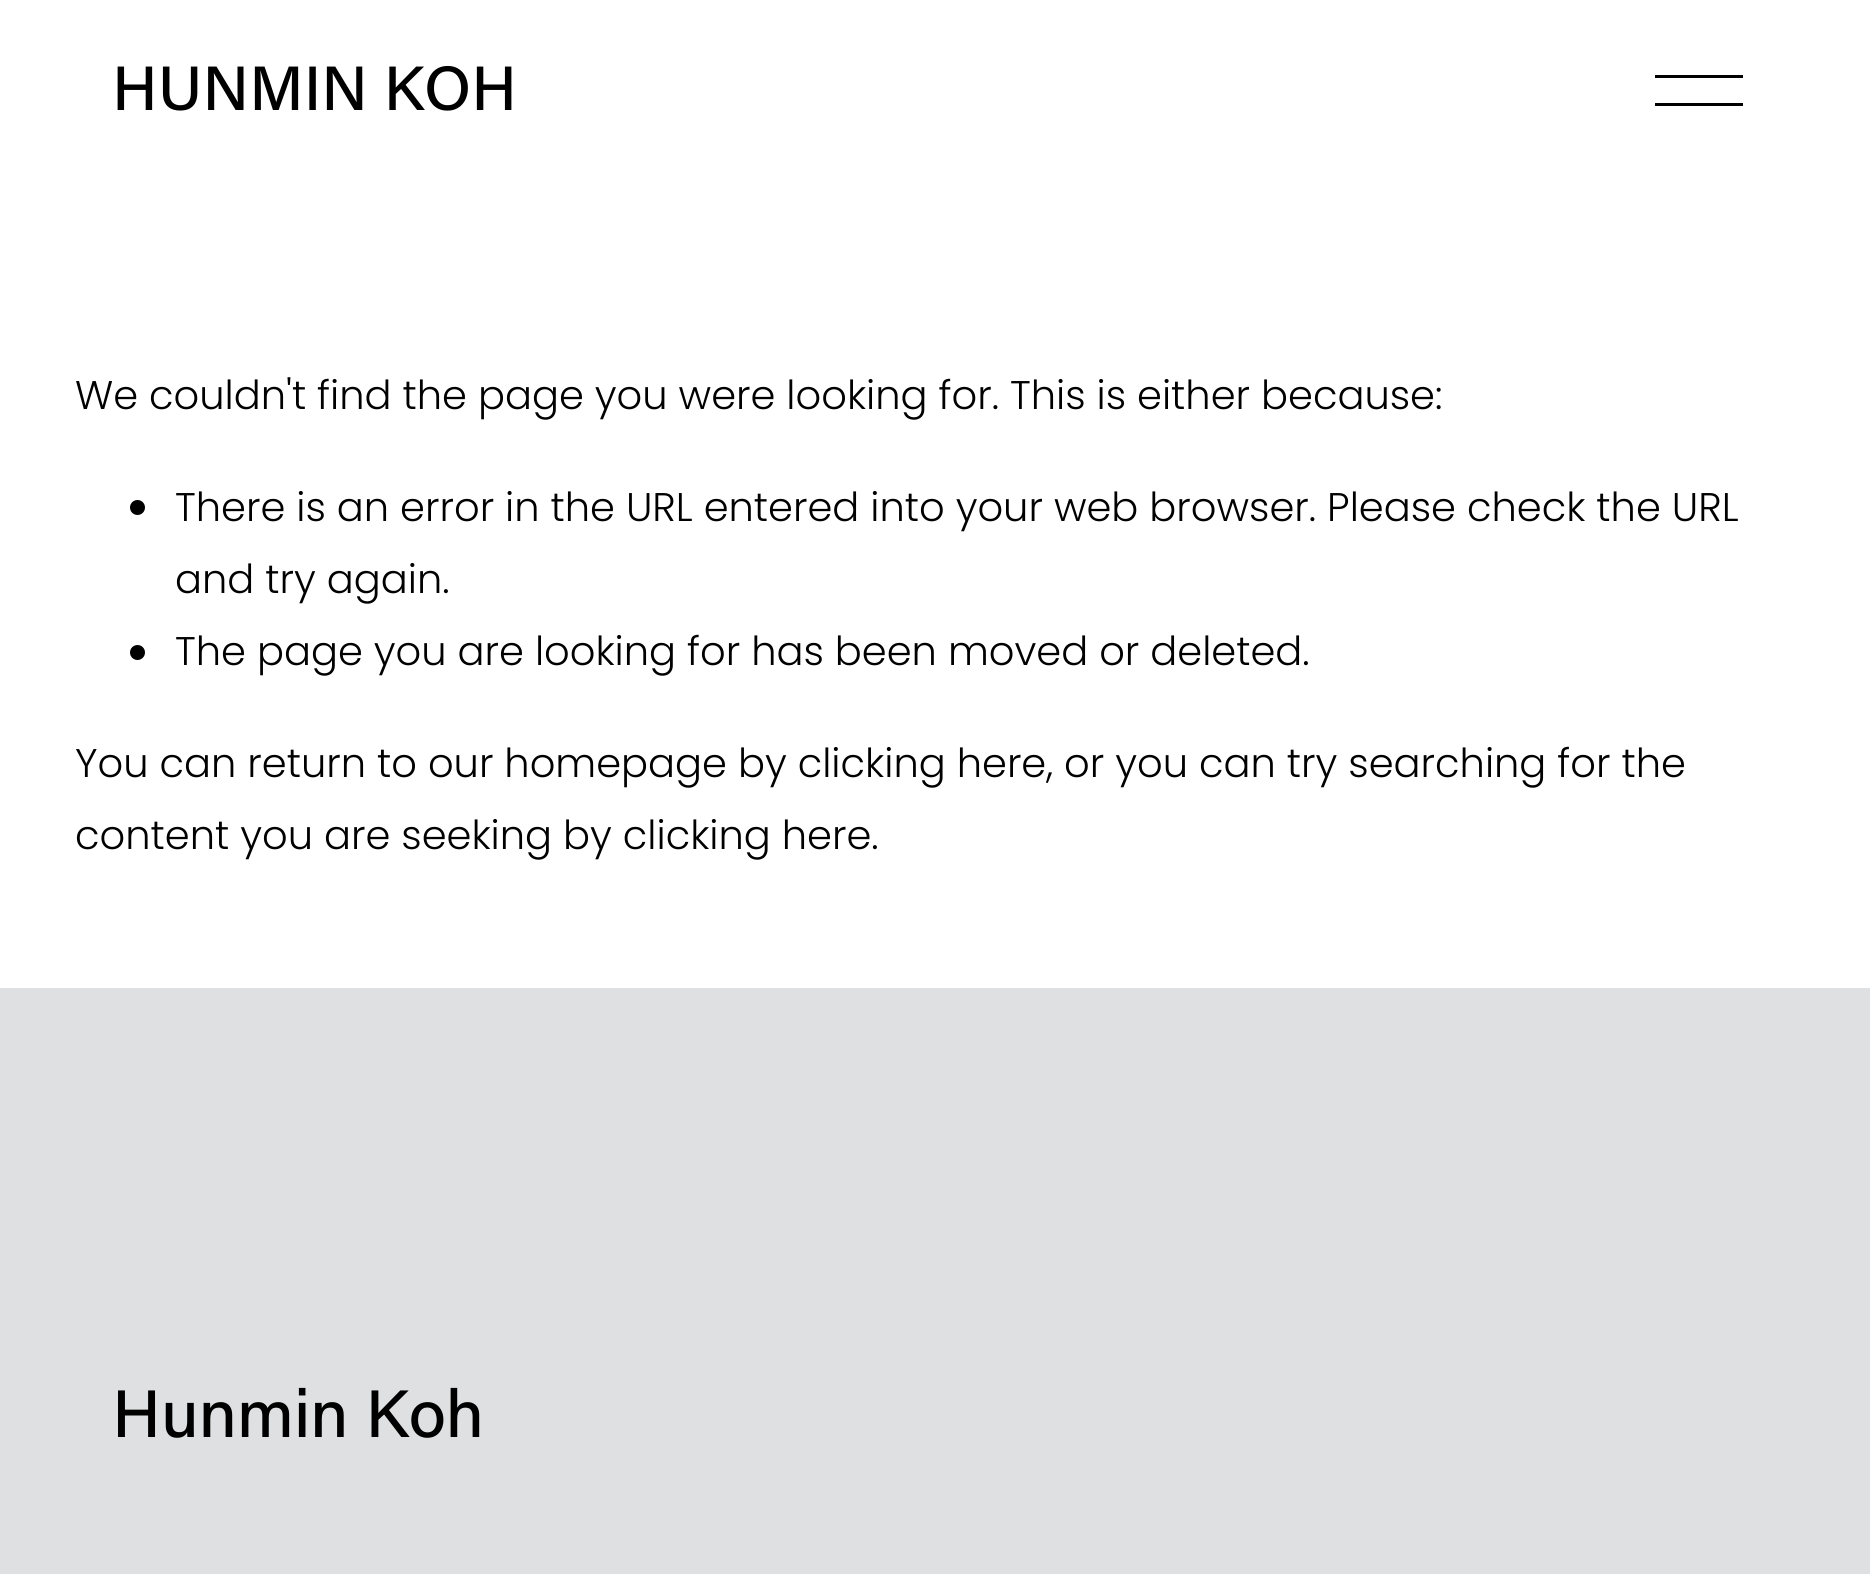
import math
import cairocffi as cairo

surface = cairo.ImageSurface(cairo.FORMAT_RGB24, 1870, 1574)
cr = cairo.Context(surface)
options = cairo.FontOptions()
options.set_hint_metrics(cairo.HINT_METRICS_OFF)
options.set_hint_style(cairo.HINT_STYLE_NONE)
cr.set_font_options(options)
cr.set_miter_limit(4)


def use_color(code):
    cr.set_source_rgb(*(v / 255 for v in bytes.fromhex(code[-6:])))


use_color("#ffffff")
cr.paint()
cr.select_font_face("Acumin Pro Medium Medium")
cr.set_font_size(62.5)
use_color("#000000")
cr.move_to(112, 110)
cr.show_text("HUNMIN KOH")
cr.rectangle(1655, 75, 88, 3)
cr.fill()
cr.rectangle(1655, 103, 88, 3)
cr.fill()
cr.select_font_face("Poppins Light")
cr.set_font_size(40)
cr.move_to(75, 409)
cr.show_text("We couldn't find the page you were looking for. This is either because:")
cr.new_path()
cr.arc(137.5, 507.5, 7.5, 0, 2 * math.pi)
cr.fill()
cr.move_to(175, 521)
cr.show_text("There is an error in the URL entered into your web browser. Please check the URL")
cr.move_to(175, 593)
cr.show_text("and try again.")
cr.new_path()
cr.arc(137.5, 652.5, 7.5, 0, 2 * math.pi)
cr.fill()
cr.move_to(175, 665)
cr.show_text("The page you are looking for has been moved or deleted.")
cr.move_to(75, 777)
cr.show_text("You can return to our homepage by clicking here, or you can try searching for the")
cr.move_to(75, 849)
cr.show_text("content you are seeking by clicking here.")
use_color("#dfe0e1")
cr.rectangle(0, 988, 1870, 586)
cr.fill()
cr.select_font_face("Acumin Pro Medium Medium")
cr.set_font_size(67)
use_color("#000000")
cr.move_to(112, 1437)
cr.show_text("Hunmin Koh")
surface.write_to_png("result.png")
